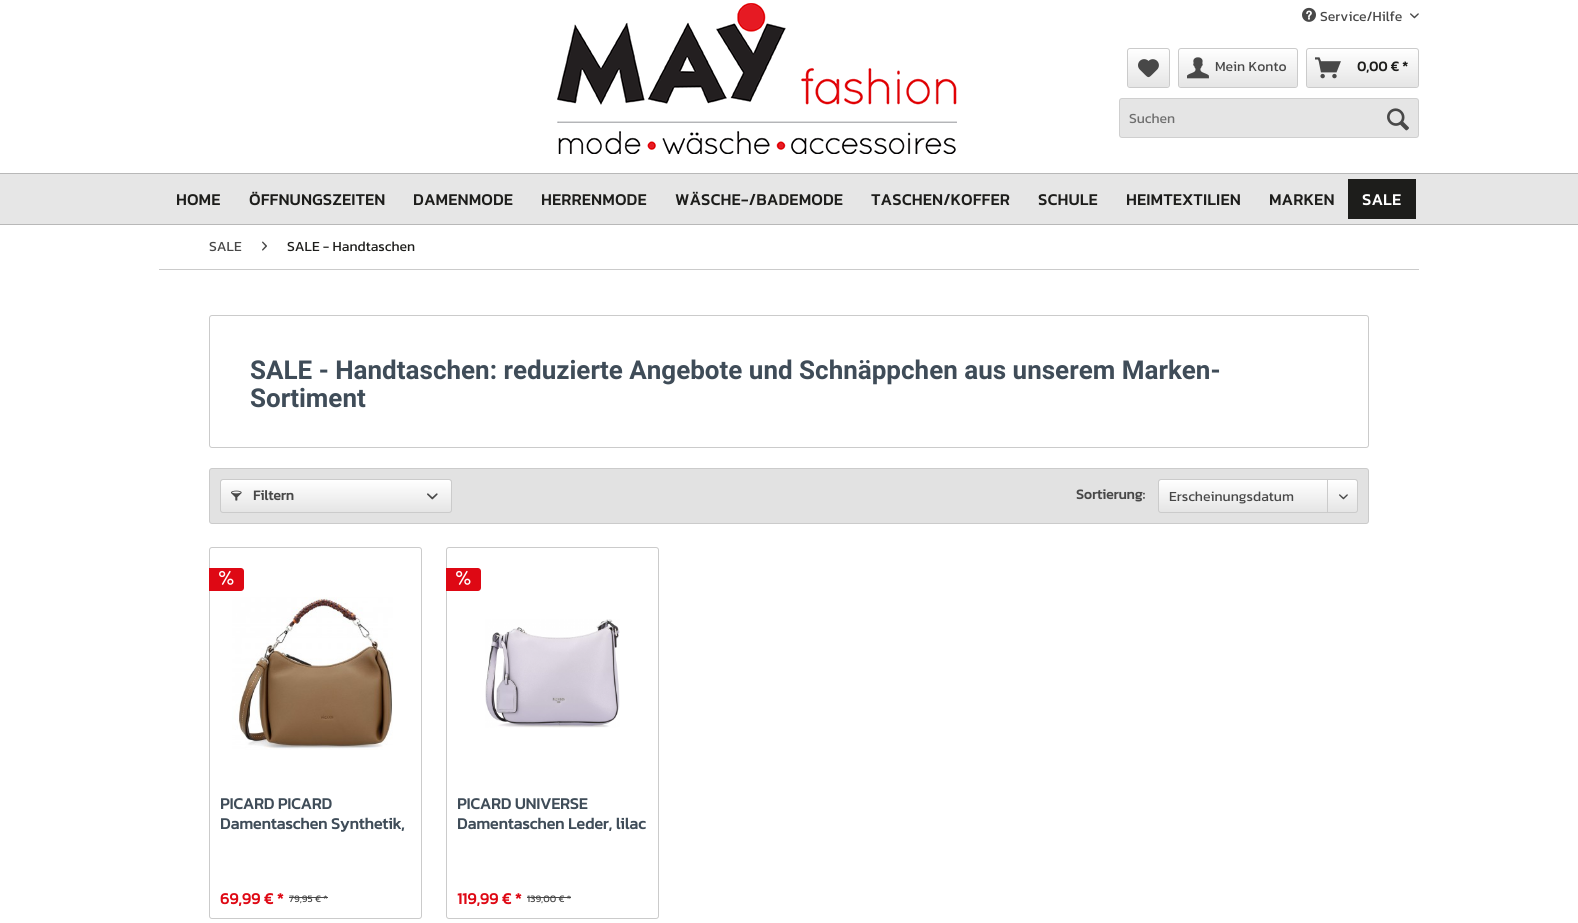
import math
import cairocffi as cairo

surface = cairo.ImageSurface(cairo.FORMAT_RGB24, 1578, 923)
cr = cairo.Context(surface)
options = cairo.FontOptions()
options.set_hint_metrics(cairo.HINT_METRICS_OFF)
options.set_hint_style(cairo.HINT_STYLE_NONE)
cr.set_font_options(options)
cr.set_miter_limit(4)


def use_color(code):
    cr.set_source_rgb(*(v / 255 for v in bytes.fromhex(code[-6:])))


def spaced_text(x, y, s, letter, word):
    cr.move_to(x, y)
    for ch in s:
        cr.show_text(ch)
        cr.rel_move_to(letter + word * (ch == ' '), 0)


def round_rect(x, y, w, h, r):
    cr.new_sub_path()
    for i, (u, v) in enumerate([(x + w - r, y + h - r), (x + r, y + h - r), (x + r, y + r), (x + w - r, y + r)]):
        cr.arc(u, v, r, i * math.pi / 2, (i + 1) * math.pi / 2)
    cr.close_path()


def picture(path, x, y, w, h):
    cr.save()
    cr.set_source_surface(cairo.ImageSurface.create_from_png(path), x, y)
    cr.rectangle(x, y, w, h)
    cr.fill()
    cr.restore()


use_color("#ffffff")
cr.paint()
picture("img1.png", 557, 3, 400, 151)
picture("img2.png", 1302, 7, 14, 15)
cr.select_font_face("Kanit")
cr.set_font_size(14)
use_color("#484848")
cr.move_to(1320, 21)
cr.show_text("Service/Hilfe")
picture("img3.png", 1410, 13, 9, 6)
gradient = cairo.LinearGradient(1149, 49, 1149, 87)
gradient.add_color_stop_rgba(0, 1, 1, 1, 1)
gradient.add_color_stop_rgba(1, 0.898, 0.898, 0.898, 1)
cr.set_source(gradient)
round_rect(1128, 49, 41, 38, 2)
cr.fill()
round_rect(1127.5, 48.5, 42, 39, 2.5)
use_color("#cbcbcb")
cr.set_line_width(1)
cr.stroke()
picture("img4.png", 1138, 59, 21, 19)
gradient = cairo.LinearGradient(1238, 49, 1238, 87)
gradient.add_color_stop_rgba(0, 1, 1, 1, 1)
gradient.add_color_stop_rgba(1, 0.898, 0.898, 0.898, 1)
cr.set_source(gradient)
round_rect(1179, 49, 118, 38, 2)
cr.fill()
round_rect(1178.5, 48.5, 119, 39, 2.5)
use_color("#cbcbcb")
cr.stroke()
picture("img5.png", 1187, 57, 22, 22)
use_color("#484848")
cr.move_to(1215, 71)
cr.show_text("Mein Konto")
gradient = cairo.LinearGradient(1363, 49, 1363, 87)
gradient.add_color_stop_rgba(0, 1, 1, 1, 1)
gradient.add_color_stop_rgba(1, 0.898, 0.898, 0.898, 1)
cr.set_source(gradient)
round_rect(1307, 49, 111, 38, 2)
cr.fill()
round_rect(1306.5, 48.5, 112, 39, 2.5)
use_color("#cbcbcb")
cr.stroke()
picture("img6.png", 1315, 57, 26, 22)
cr.select_font_face("Kanit", cairo.FONT_SLANT_NORMAL, cairo.FONT_WEIGHT_BOLD)
use_color("#1d1d1b")
cr.move_to(1357, 71)
cr.show_text("0,00 € *")
use_color("#e5e5e5")
round_rect(1119, 98, 300, 40, 3)
cr.fill()
round_rect(1119.5, 98.5, 299, 39, 2.5)
cr.set_source_rgba(0, 0, 0, 0.1)
cr.stroke()
cr.select_font_face("Kanit")
use_color("#6e6e6e")
cr.move_to(1129, 123)
cr.show_text("Suchen")
picture("img7.png", 1387, 108, 22, 23)
use_color("#e6e6e6")
cr.rectangle(0, 174, 1578, 50)
cr.fill()
use_color("#b8b8b8")
cr.rectangle(0, 173, 1578, 1)
cr.fill()
cr.rectangle(0, 224, 1578, 1)
cr.fill()
cr.select_font_face("Kanit", cairo.FONT_SLANT_NORMAL, cairo.FONT_WEIGHT_BOLD)
cr.set_font_size(16)
use_color("#1d1d1b")
spaced_text(176, 205, "HOME", 0.5, 0)
spaced_text(249, 205, "ÖFFNUNGSZEITEN", 0.5, 0)
spaced_text(413, 205, "DAMENMODE", 0.5, 0)
spaced_text(541, 205, "HERRENMODE", 0.5, 0)
spaced_text(675, 205, "WÄSCHE-/BADEMODE", 0.5, 0)
spaced_text(871, 205, "TASCHEN/KOFFER", 0.5, 0)
spaced_text(1038, 205, "SCHULE", 0.5, 0)
spaced_text(1126, 205, "HEIMTEXTILIEN", 0.5, 0)
spaced_text(1269, 205, "MARKEN", 0.5, 0)
cr.rectangle(1348, 179, 68, 40)
cr.fill()
use_color("#ffffff")
spaced_text(1362, 205, "SALE", 0.5, 0)
use_color("#cbcbcb")
cr.rectangle(159, 269, 1260, 1)
cr.fill()
cr.select_font_face("Kanit")
cr.set_font_size(14)
use_color("#484848")
cr.move_to(209, 251)
cr.show_text("SALE")
picture("img8.png", 262, 241, 5, 10)
use_color("#1d1d1b")
cr.move_to(287, 251)
cr.show_text("SALE - Handtaschen")
round_rect(209.5, 315.5, 1159, 132, 2.5)
use_color("#cbcbcb")
cr.stroke()
cr.select_font_face("Roboto", cairo.FONT_SLANT_NORMAL, cairo.FONT_WEIGHT_BOLD)
cr.set_font_size(26)
use_color("#3f4c58")
cr.move_to(250, 379)
cr.show_text("SALE - Handtaschen: reduzierte Angebote und Schnäppchen aus unserem Marken-")
cr.move_to(250, 407)
cr.show_text("Sortiment")
use_color("#e2e2e2")
round_rect(209.5, 468.5, 1159, 55, 2.5)
cr.fill_preserve()
use_color("#cbcbcb")
cr.stroke()
gradient = cairo.LinearGradient(336, 480, 336, 512)
gradient.add_color_stop_rgba(0, 1, 1, 1, 1)
gradient.add_color_stop_rgba(1, 0.898, 0.898, 0.898, 1)
cr.set_source(gradient)
round_rect(221, 480, 230, 32, 2)
cr.fill()
round_rect(220.5, 479.5, 231, 33, 2.5)
use_color("#cbcbcb")
cr.stroke()
picture("img9.png", 231, 490, 11, 11)
cr.select_font_face("Kanit", cairo.FONT_SLANT_NORMAL, cairo.FONT_WEIGHT_BOLD)
cr.set_font_size(14)
use_color("#484848")
cr.move_to(253, 500)
cr.show_text("Filtern")
picture("img10.png", 427, 493, 11, 7)
cr.move_to(1076, 499)
cr.show_text("Sortierung:")
gradient = cairo.LinearGradient(1258, 480, 1258, 512)
gradient.add_color_stop_rgba(0, 1, 1, 1, 1)
gradient.add_color_stop_rgba(1, 0.898, 0.898, 0.898, 1)
cr.set_source(gradient)
round_rect(1159, 480, 198, 32, 2)
cr.fill()
round_rect(1158.5, 479.5, 199, 33, 2.5)
use_color("#cbcbcb")
cr.stroke()
cr.select_font_face("Kanit")
use_color("#484848")
cr.move_to(1169, 501)
cr.show_text("Erscheinungsdatum")
use_color("#cbcbcb")
cr.rectangle(1327, 480, 1, 33)
cr.fill()
picture("img11.png", 1339, 494, 9, 6)
round_rect(209.5, 547.5, 212, 371, 2.5)
cr.stroke()
use_color("#de0814")
cr.new_path()
cr.move_to(209, 568)
cr.line_to(241, 568)
cr.curve_to(242.5, 568, 244, 569.5, 244, 571)
cr.line_to(244, 588)
cr.curve_to(244, 589.5, 242.5, 591, 241, 591)
cr.line_to(209, 591)
cr.close_path()
cr.fill()
picture("img12.png", 219, 570, 15, 15)
picture("img13.png", 232, 597, 161, 153)
cr.select_font_face("Kanit", cairo.FONT_SLANT_NORMAL, cairo.FONT_WEIGHT_BOLD)
cr.set_font_size(16)
use_color("#3f4c58")
cr.move_to(220, 809)
cr.show_text("PICARD PICARD")
cr.move_to(220, 829)
cr.show_text("Damentaschen Synthetik,")
use_color("#de0814")
cr.move_to(220, 904)
cr.show_text("69,99 € *")
cr.select_font_face("Kanit")
cr.set_font_size(10)
use_color("#484848")
cr.move_to(289, 902)
cr.show_text("79,95 € *")
cr.rectangle(289, 897, 39, 1)
cr.fill()
round_rect(446.5, 547.5, 212, 371, 2.5)
use_color("#cbcbcb")
cr.stroke()
use_color("#de0814")
cr.new_path()
cr.move_to(446, 568)
cr.line_to(478, 568)
cr.curve_to(479.5, 568, 481, 569.5, 481, 571)
cr.line_to(481, 588)
cr.curve_to(481, 589.5, 479.5, 591, 478, 591)
cr.line_to(446, 591)
cr.close_path()
cr.fill()
picture("img12.png", 456, 570, 15, 15)
picture("img14.png", 485, 619, 135, 109)
cr.select_font_face("Kanit", cairo.FONT_SLANT_NORMAL, cairo.FONT_WEIGHT_BOLD)
cr.set_font_size(16)
use_color("#3f4c58")
cr.move_to(457, 809)
cr.show_text("PICARD UNIVERSE")
cr.move_to(457, 829)
cr.show_text("Damentaschen Leder, lilac")
use_color("#de0814")
cr.move_to(457, 904)
cr.show_text("119,99 € *")
cr.select_font_face("Kanit")
cr.set_font_size(10)
use_color("#484848")
cr.move_to(527, 902)
cr.show_text("139,00 € *")
cr.rectangle(527, 897, 44, 1)
cr.fill()
surface.write_to_png("result.png")
